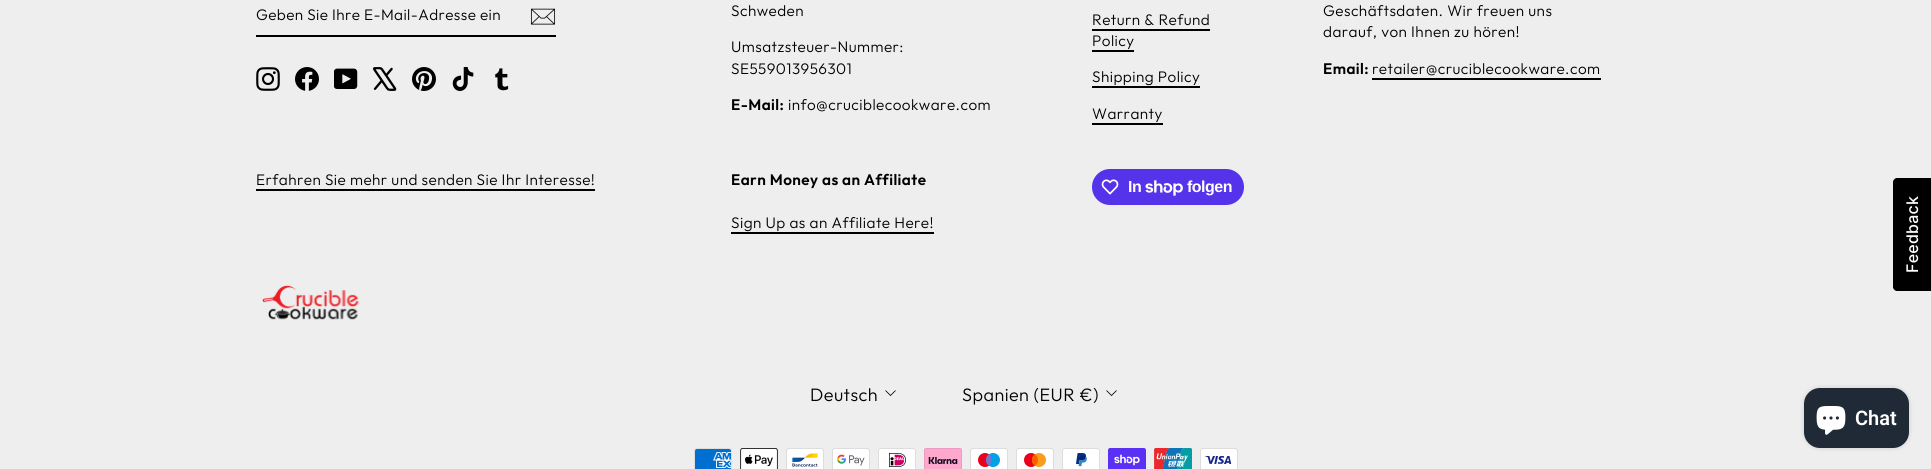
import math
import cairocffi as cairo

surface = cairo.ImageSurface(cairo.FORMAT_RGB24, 1931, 469)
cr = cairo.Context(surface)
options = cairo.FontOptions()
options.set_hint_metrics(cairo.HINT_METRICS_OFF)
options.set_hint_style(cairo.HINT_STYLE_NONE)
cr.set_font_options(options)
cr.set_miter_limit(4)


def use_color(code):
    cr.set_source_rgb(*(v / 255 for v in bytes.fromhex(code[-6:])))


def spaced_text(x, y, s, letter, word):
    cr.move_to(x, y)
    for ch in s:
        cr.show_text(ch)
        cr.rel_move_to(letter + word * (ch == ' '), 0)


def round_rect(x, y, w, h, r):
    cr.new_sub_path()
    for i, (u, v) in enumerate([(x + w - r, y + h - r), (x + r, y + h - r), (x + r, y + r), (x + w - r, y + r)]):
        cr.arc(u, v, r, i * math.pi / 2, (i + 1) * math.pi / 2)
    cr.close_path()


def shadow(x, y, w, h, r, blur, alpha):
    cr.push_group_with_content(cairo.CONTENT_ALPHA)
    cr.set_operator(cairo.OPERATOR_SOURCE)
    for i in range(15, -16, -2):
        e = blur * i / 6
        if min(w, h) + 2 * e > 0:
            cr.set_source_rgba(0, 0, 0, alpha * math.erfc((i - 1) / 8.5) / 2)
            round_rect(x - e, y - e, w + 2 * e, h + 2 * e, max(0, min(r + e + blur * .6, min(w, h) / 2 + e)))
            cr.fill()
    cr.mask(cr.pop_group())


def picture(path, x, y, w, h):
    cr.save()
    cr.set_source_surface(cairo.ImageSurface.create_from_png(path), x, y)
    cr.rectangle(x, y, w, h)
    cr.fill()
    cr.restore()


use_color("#eeeeee")
cr.paint()
use_color("#000000")
cr.rectangle(256, 35, 300, 2)
cr.fill()
cr.select_font_face("Outfit Light")
cr.set_font_size(15.3)
spaced_text(256, 20, "Geben Sie Ihre E-Mail-Adresse ein", 0.4, 0)
picture("img1.png", 530, 8, 26, 17)
picture("img2.png", 256, 67, 24, 24)
picture("img3.png", 295, 67, 24, 24)
picture("img4.png", 334, 68, 24, 21)
picture("img5.png", 373, 67, 24, 24)
picture("img6.png", 412, 67, 24, 24)
picture("img7.png", 452, 67, 22, 24)
picture("img8.png", 495, 68, 14, 23)
spaced_text(731, 16, "Schweden", 0.45, 0)
spaced_text(731, 52, "Umsatzsteuer-Nummer:", 0.45, 0)
spaced_text(731, 74, "SE559013956301", 0.45, 0)
cr.select_font_face("Outfit SemiBold")
spaced_text(731, 110, "E-Mail:", 0.45, 0)
cr.select_font_face("Outfit Light")
spaced_text(788, 110, "info@cruciblecookware.com", 0.45, 0)
spaced_text(1092, 25, "Return & Refund", 0.45, 0)
cr.rectangle(1092, 29, 118, 2)
cr.fill()
spaced_text(1092, 46, "Policy", 0.45, 0)
cr.rectangle(1092, 50, 42, 2)
cr.fill()
spaced_text(1092, 82, "Shipping Policy", 0.45, 0)
cr.rectangle(1092, 86, 108, 2)
cr.fill()
spaced_text(1092, 119, "Warranty", 0.45, 0)
cr.rectangle(1092, 123, 71, 2)
cr.fill()
spaced_text(1323, 16, "Geschäftsdaten. Wir freuen uns", 0.45, 0)
spaced_text(1323, 37, "darauf, von Ihnen zu hören!", 0.45, 0)
cr.select_font_face("Outfit SemiBold")
spaced_text(1323, 74, "Email:", 0.45, 0)
cr.select_font_face("Outfit Light")
spaced_text(1372, 74, "retailer@cruciblecookware.com", 0.45, 0)
cr.rectangle(1372, 78, 229, 2)
cr.fill()
spaced_text(256, 185, "Erfahren Sie mehr und senden Sie Ihr Interesse!", 0.45, 0)
cr.rectangle(256, 189, 339, 2)
cr.fill()
cr.select_font_face("Outfit SemiBold")
spaced_text(731, 185, "Earn Money as an Affiliate", 0.45, 0)
cr.select_font_face("Outfit Light")
spaced_text(731, 228, "Sign Up as an Affiliate Here!", 0.45, 0)
cr.rectangle(731, 232, 203, 2)
cr.fill()
use_color("#5433eb")
round_rect(1092, 169, 152, 36, 18)
cr.fill()
picture("img9.png", 1101, 179, 18, 16)
cr.select_font_face("Liberation Sans", cairo.FONT_SLANT_NORMAL, cairo.FONT_WEIGHT_BOLD)
cr.set_font_size(16)
use_color("#ffffff")
spaced_text(1128, 192, "In", -0.5, 0)
picture("img10.png", 1145, 180, 38, 16)
spaced_text(1187, 192, "folgen", -0.5, 0)
picture("img11.png", 262, 285, 97, 35)
cr.select_font_face("Outfit Light")
cr.set_font_size(18)
use_color("#000000")
spaced_text(810, 401, "Deutsch", 0.45, 0)
cr.new_path()
cr.move_to(885.5, 390.5)
cr.line_to(890.5, 395.5)
cr.line_to(895.5, 390.5)
cr.set_line_width(0.8)
cr.stroke()
spaced_text(962, 401, "Spanien (EUR €)", 0.45, 0)
cr.new_path()
cr.move_to(1106.5, 390.5)
cr.line_to(1111.5, 395.5)
cr.line_to(1116.5, 390.5)
cr.stroke()
picture("img12.png", 694, 448, 38, 21)
picture("img13.png", 740, 448, 38, 21)
picture("img14.png", 786, 448, 38, 21)
picture("img15.png", 832, 448, 38, 21)
picture("img16.png", 878, 448, 38, 21)
picture("img17.png", 924, 448, 38, 21)
picture("img18.png", 970, 448, 38, 21)
picture("img19.png", 1016, 448, 38, 21)
picture("img20.png", 1062, 448, 38, 21)
picture("img21.png", 1108, 448, 38, 21)
picture("img22.png", 1154, 448, 38, 21)
picture("img23.png", 1200, 448, 38, 21)
cr.new_path()
cr.move_to(1931, 291)
cr.line_to(1897, 291)
cr.curve_to(1895, 291, 1893, 289, 1893, 287)
cr.line_to(1893, 182)
cr.curve_to(1893, 180, 1895, 178, 1897, 178)
cr.line_to(1931, 178)
cr.close_path()
cr.fill()
cr.select_font_face("Inter Medium")
cr.set_font_size(16)
use_color("#ffffff")
cr.save()
cr.translate(1918, 273)
cr.rotate(-90 * math.pi / 180)
spaced_text(0, 0, "Feedback", 0.25, 0)
cr.restore()
use_color("#000000")
shadow(1804, 388, 105, 60, 16, 2.5, 0.15)
use_color("#202a36")
round_rect(1804, 388, 105, 60, 16)
cr.fill()
picture("img24.png", 1816, 406, 30, 29)
cr.select_font_face("Roboto SemiBold")
cr.set_font_size(20)
use_color("#ffffff")
cr.move_to(1855, 425)
cr.show_text("Chat")
surface.write_to_png("result.png")
